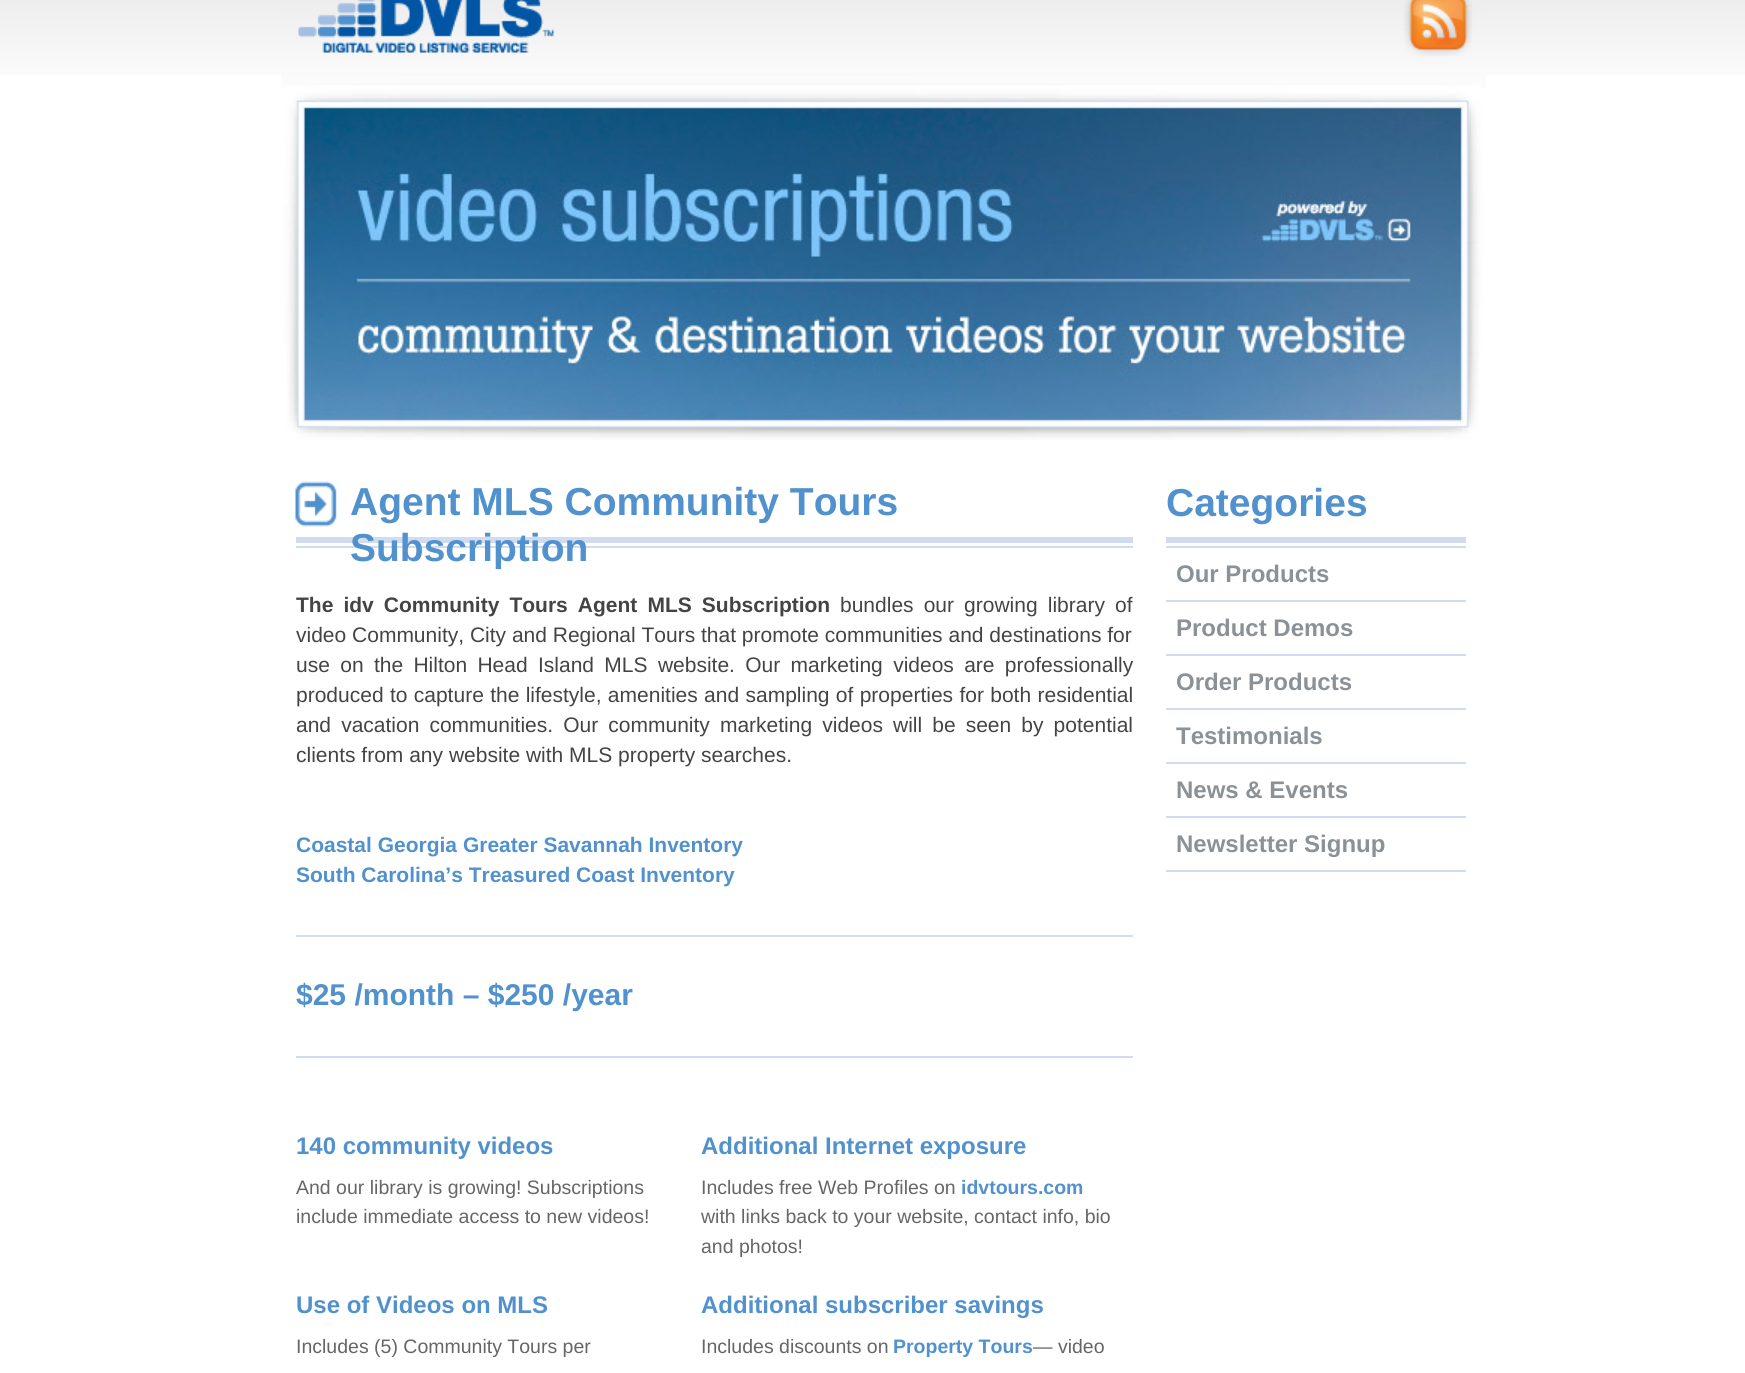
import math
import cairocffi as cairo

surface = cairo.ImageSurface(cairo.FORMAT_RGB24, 1745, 1373)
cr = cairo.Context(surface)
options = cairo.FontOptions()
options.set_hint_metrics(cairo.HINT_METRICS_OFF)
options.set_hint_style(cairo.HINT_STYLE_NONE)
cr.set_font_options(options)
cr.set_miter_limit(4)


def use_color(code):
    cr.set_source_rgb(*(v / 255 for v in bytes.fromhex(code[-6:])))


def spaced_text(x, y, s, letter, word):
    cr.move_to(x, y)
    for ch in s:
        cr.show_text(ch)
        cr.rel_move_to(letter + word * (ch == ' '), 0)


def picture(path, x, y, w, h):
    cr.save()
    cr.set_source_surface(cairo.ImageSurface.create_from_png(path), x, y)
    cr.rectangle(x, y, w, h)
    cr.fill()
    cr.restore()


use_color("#ffffff")
cr.paint()
picture("img1.png", 0, 0, 1745, 75)
picture("img2.png", 281, 0, 1205, 371)
picture("img3.png", 298, 0, 256, 53)
picture("img4.png", 1404, 0, 68, 56)
picture("img5.png", 287, 85, 1192, 355)
use_color("#d1dcf1")
cr.rectangle(296, 537, 837, 6)
cr.fill()
picture("img6.png", 295, 481, 42, 46)
cr.select_font_face("Liberation Sans", cairo.FONT_SLANT_NORMAL, cairo.FONT_WEIGHT_BOLD)
cr.set_font_size(39)
use_color("#5191cd")
cr.move_to(350, 515)
cr.show_text("Agent MLS Community Tours")
use_color("#d1dcf1")
cr.rectangle(296, 546, 837, 2)
cr.fill()
use_color("#5191cd")
cr.move_to(350, 561)
cr.show_text("Subscription")
use_color("#d1dcf1")
cr.rectangle(296, 935, 837, 2)
cr.fill()
cr.set_font_size(21)
use_color("#444444")
spaced_text(296, 612, "The idv Community Tours Agent MLS Subscription", 0, 4.25)
cr.select_font_face("Liberation Sans")
spaced_text(840, 612, "bundles our growing library of", 0, 4.25)
cr.move_to(296, 642)
cr.show_text("video Community, City and Regional Tours that promote communities and destinations for")
spaced_text(296, 672, "use on the Hilton Head Island MLS website. Our marketing videos are professionally", 0, 4.5)
spaced_text(296, 702, "produced to capture the lifestyle, amenities and sampling of properties for both residential", 0, 0.5)
spaced_text(296, 732, "and vacation communities. Our community marketing videos will be seen by potential", 0, 4.25)
cr.move_to(296, 762)
cr.show_text("clients from any website with MLS property searches.")
cr.select_font_face("Liberation Sans", cairo.FONT_SLANT_NORMAL, cairo.FONT_WEIGHT_BOLD)
use_color("#5191cd")
cr.move_to(296, 852)
cr.show_text("Coastal Georgia Greater Savannah Inventory")
cr.move_to(296, 882)
cr.show_text("South Carolina’s Treasured Coast Inventory")
use_color("#d1dcf1")
cr.rectangle(296, 1056, 837, 2)
cr.fill()
cr.set_font_size(30)
use_color("#5191cd")
cr.move_to(296, 1005)
cr.show_text("$25 /month – $250 /year")
cr.set_font_size(24)
cr.move_to(296, 1154)
cr.show_text("140 community videos")
cr.select_font_face("Liberation Sans")
cr.set_font_size(19.5)
use_color("#666666")
cr.move_to(296, 1194)
cr.show_text("And our library is growing! Subscriptions")
cr.move_to(296, 1223)
cr.show_text("include immediate access to new videos!")
cr.select_font_face("Liberation Sans", cairo.FONT_SLANT_NORMAL, cairo.FONT_WEIGHT_BOLD)
cr.set_font_size(24)
use_color("#5191cd")
cr.move_to(296, 1313)
cr.show_text("Use of Videos on MLS")
cr.select_font_face("Liberation Sans")
cr.set_font_size(19.5)
use_color("#666666")
cr.move_to(296, 1353)
cr.show_text("Includes (5) Community Tours per")
cr.select_font_face("Liberation Sans", cairo.FONT_SLANT_NORMAL, cairo.FONT_WEIGHT_BOLD)
cr.set_font_size(24)
use_color("#5191cd")
cr.move_to(701, 1154)
cr.show_text("Additional Internet exposure")
cr.select_font_face("Liberation Sans")
cr.set_font_size(19.5)
use_color("#666666")
cr.move_to(701, 1194)
cr.show_text("Includes free Web Profiles on")
cr.select_font_face("Liberation Sans", cairo.FONT_SLANT_NORMAL, cairo.FONT_WEIGHT_BOLD)
use_color("#5191cd")
cr.move_to(961, 1194)
cr.show_text("idvtours.com")
cr.select_font_face("Liberation Sans")
use_color("#666666")
cr.move_to(701, 1223)
cr.show_text("with links back to your website, contact info, bio")
cr.move_to(701, 1253)
cr.show_text("and photos!")
cr.select_font_face("Liberation Sans", cairo.FONT_SLANT_NORMAL, cairo.FONT_WEIGHT_BOLD)
cr.set_font_size(24)
use_color("#5191cd")
cr.move_to(701, 1313)
cr.show_text("Additional subscriber savings")
cr.select_font_face("Liberation Sans")
cr.set_font_size(19.5)
use_color("#666666")
cr.move_to(701, 1353)
cr.show_text("Includes discounts on")
cr.select_font_face("Liberation Sans", cairo.FONT_SLANT_NORMAL, cairo.FONT_WEIGHT_BOLD)
use_color("#5191cd")
cr.move_to(893, 1353)
cr.show_text("Property Tours")
cr.select_font_face("Liberation Sans")
use_color("#666666")
cr.move_to(1033, 1353)
cr.show_text("— video")
use_color("#d1dcf1")
cr.rectangle(1166, 537, 300, 6)
cr.fill()
cr.select_font_face("Liberation Sans", cairo.FONT_SLANT_NORMAL, cairo.FONT_WEIGHT_BOLD)
cr.set_font_size(39)
use_color("#5191cd")
cr.move_to(1166, 516)
cr.show_text("Categories")
use_color("#d1dcf1")
cr.rectangle(1166, 546, 300, 2)
cr.fill()
cr.rectangle(1166, 600, 300, 2)
cr.fill()
cr.set_font_size(24)
use_color("#8a9298")
cr.move_to(1176, 582)
cr.show_text("Our Products")
use_color("#d1dcf1")
cr.rectangle(1166, 654, 300, 2)
cr.fill()
use_color("#8a9298")
cr.move_to(1176, 636)
cr.show_text("Product Demos")
use_color("#d1dcf1")
cr.rectangle(1166, 708, 300, 2)
cr.fill()
use_color("#8a9298")
cr.move_to(1176, 690)
cr.show_text("Order Products")
use_color("#d1dcf1")
cr.rectangle(1166, 762, 300, 2)
cr.fill()
use_color("#8a9298")
cr.move_to(1176, 744)
cr.show_text("Testimonials")
use_color("#d1dcf1")
cr.rectangle(1166, 816, 300, 2)
cr.fill()
use_color("#8a9298")
cr.move_to(1176, 798)
cr.show_text("News & Events")
use_color("#d1dcf1")
cr.rectangle(1166, 870, 300, 2)
cr.fill()
use_color("#8a9298")
cr.move_to(1176, 852)
cr.show_text("Newsletter Signup")
surface.write_to_png("result.png")
